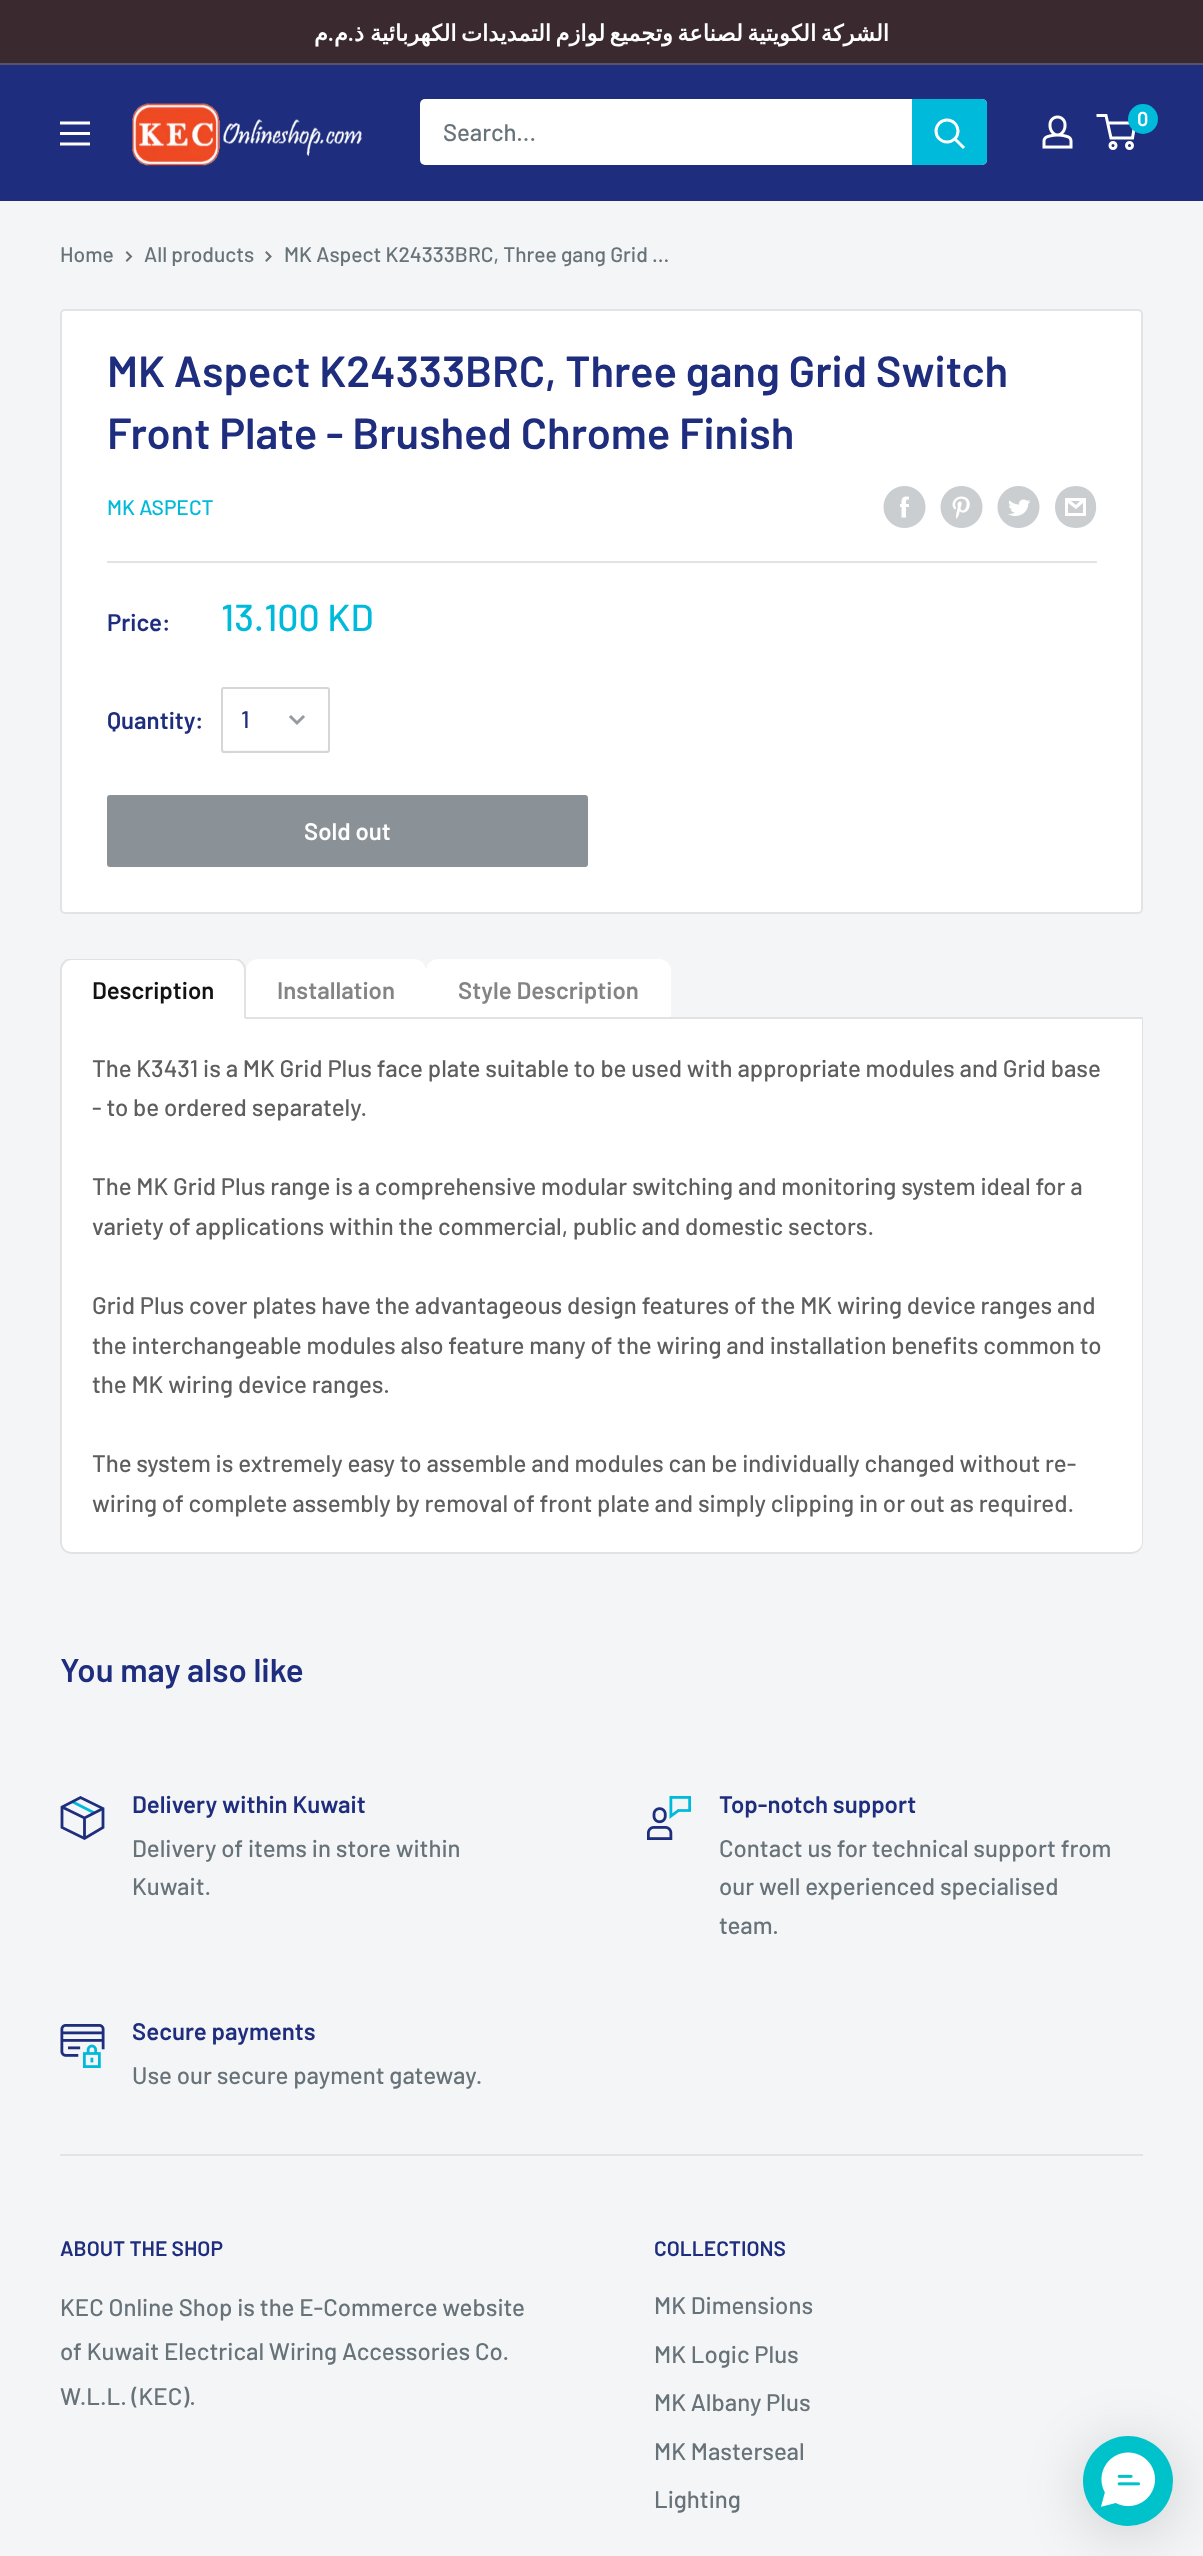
(async () => {
    const canvas = document.querySelector("canvas");
    canvas.width = 1203;
    canvas.height = 2556;
    const context = canvas.getContext("2d");
    context.miterLimit = 4;
    context.fontKerning = "normal";
    function write(s, x, y, font, color) {
        context.font = font;
        context.fillStyle = color;
        context.fillText(s, x, y);
    }
    function block(x, y, w, h, color) {
        context.fillStyle = color;
        context.fillRect(x, y, w, h);
    }
    function card(x, y, w, h, r, color) {
        context.fillStyle = color;
        context.beginPath();
        context.roundRect(x, y, w, h, r);
        context.fill();
    }
    async function photo(src, x, y, w, h) {
        const img = new Image();
        img.src = src;
        await img.decode();
        context.drawImage(img, x, y, w, h);
    }

    block(0, 0, 1203, 2556, "rgb(243, 245, 246)");
    block(0, 0, 1203, 63, "rgb(58, 42, 47)");
    block(0, 63, 1203, 2, "rgb(90, 82, 105)");
    context.direction = "rtl";
    write("م", 328, 41, "bold 22.5px DejaVu Sans", "rgb(255, 255, 255)");
    write(".", 334, 41, "600 22.5px Barlow", "rgb(255, 255, 255)");
    write("م", 348, 41, "bold 22.5px DejaVu Sans", "rgb(255, 255, 255)");
    write(".", 354, 41, "600 22.5px Barlow", "rgb(255, 255, 255)");
    write("ذ", 364, 41, "bold 22.5px DejaVu Sans", "rgb(255, 255, 255)");
    context.wordSpacing = "-2.75px";
    write("الشركة الكويتية لصناعة وتجميع لوازم التمديدات الكهربائية", 889, 41, "bold 22.5px DejaVu Sans", "rgb(255, 255, 255)");
    block(0, 65, 1203, 136, "rgb(30, 45, 125)");
    await photo("media/1.png", 132, 103, 231, 63);
    await photo("media/2.png", 1042, 115, 31, 34);
    context.beginPath();
    context.arc(1113, 145.5, 3, 0, Math.PI * 2);
    context.strokeStyle = "rgb(255, 255, 255)";
    context.lineWidth = 3;
    context.stroke();
    context.beginPath();
    context.arc(1129.5, 145.5, 3, 0, Math.PI * 2);
    context.stroke();
    context.beginPath();
    context.moveTo(1107.5, 123);
    context.lineTo(1135, 123);
    context.lineTo(1132.5, 138);
    context.lineTo(1111, 138);
    context.lineTo(1106, 115.5);
    context.lineTo(1096.5, 115.5);
    context.stroke();
    context.fillStyle = "rgb(0, 186, 219)";
    context.beginPath();
    context.arc(1143, 119, 15, 0, Math.PI * 2);
    context.fill();
    context.wordSpacing = "0px";
    context.direction = "ltr";
    write("0", 1137, 126, "600 20px Barlow", "rgb(255, 255, 255)");
    await photo("media/3.png", 60, 121, 30, 25);
    card(420, 99, 567, 66, 5, "rgb(255, 255, 255)");
    write("Search...", 443, 141, "500 24px Barlow", "rgb(103, 114, 121)");
    context.fillStyle = "rgb(0, 186, 219)";
    context.beginPath();
    context.roundRect(912, 99, 75, 66, [0, 5, 5, 0]);
    context.fill();
    context.beginPath();
    context.moveTo(963, 147);
    context.lineTo(955.5, 139.5);
    context.lineCap = "square";
    context.stroke();
    context.beginPath();
    context.arc(947, 131, 11, 0, Math.PI * 2);
    context.stroke();
    write("Home", 60, 262, "500 21px Barlow", "rgb(103, 114, 121)");
    context.beginPath();
    context.moveTo(127, 252.5);
    context.lineTo(131, 256.5);
    context.lineTo(127, 260.5);
    context.strokeStyle = "rgb(103, 114, 121)";
    context.lineWidth = 2;
    context.stroke();
    write("All products", 144, 262, "500 21px Barlow", "rgb(103, 114, 121)");
    context.beginPath();
    context.moveTo(266.5, 252.5);
    context.lineTo(270.5, 256.5);
    context.lineTo(266.5, 260.5);
    context.stroke();
    write("MK Aspect K24333BRC, Three gang Grid ...", 284, 262, "500 21px Barlow", "rgb(103, 114, 121)");
    context.fillStyle = "rgb(255, 255, 255)";
    context.beginPath();
    context.roundRect(61, 310, 1081, 603, 4);
    context.fill();
    context.strokeStyle = "rgb(225, 227, 228)";
    context.stroke();
    write("MK Aspect K24333BRC, Three gang Grid Switch", 107, 387, "600 43.5px Barlow", "rgb(30, 45, 125)");
    write("Front Plate - Brushed Chrome Finish", 107, 449, "600 43.5px Barlow", "rgb(30, 45, 125)");
    write("MK ASPECT", 107, 515, "500 21px Barlow", "rgb(0, 186, 219)");
    await photo("media/4.png", 883, 486, 43, 42);
    await photo("media/5.png", 940, 486, 43, 42);
    await photo("media/6.png", 997, 486, 43, 42);
    context.fillStyle = "rgb(202, 206, 208)";
    context.beginPath();
    context.moveTo(1076, 528);
    context.bezierCurveTo(1048, 528, 1048, 486, 1076, 486);
    context.bezierCurveTo(1103, 486, 1103, 528, 1076, 528);
    context.closePath();
    context.moveTo(1071, 501);
    context.lineTo(1080, 501);
    context.lineTo(1076, 505);
    context.closePath();
    context.moveTo(1083, 503);
    context.lineTo(1083, 513);
    context.lineTo(1068, 513);
    context.lineTo(1068, 503);
    context.lineTo(1076, 509);
    context.closePath();
    context.moveTo(1086, 498);
    context.lineTo(1065, 498);
    context.lineTo(1065, 516);
    context.lineTo(1086, 516);
    context.closePath();
    context.fill();
    block(107, 561, 990, 2, "rgb(225, 227, 228)");
    write("Price:", 107, 631, "600 24px Barlow", "rgb(30, 45, 125)");
    write("13.100 KD", 221, 631, "500 37.5px Barlow", "rgb(0, 186, 219)");
    write("Quantity:", 107, 729, "600 24px Barlow", "rgb(30, 45, 125)");
    context.fillStyle = "rgb(246, 247, 247)";
    context.beginPath();
    context.moveTo(222, 749);
    context.bezierCurveTo(222, 757, 235, 752, 241, 752);
    context.lineTo(310, 752);
    context.bezierCurveTo(335, 752, 329, 757, 329, 730);
    context.lineTo(329, 690);
    context.lineTo(328, 705);
    context.lineTo(328, 749);
    context.lineTo(327, 750);
    context.lineTo(241, 750);
    context.bezierCurveTo(237, 750, 227, 751, 223, 750);
    context.closePath();
    context.fill();
    context.beginPath();
    context.roundRect(222, 688, 107, 64, 2);
    context.strokeStyle = "rgb(212, 214, 216)";
    context.stroke();
    write("1", 241, 728, "500 24px Barlow", "rgb(30, 45, 125)");
    context.beginPath();
    context.moveTo(303, 717);
    context.lineTo(297, 723);
    context.lineTo(291, 717);
    context.strokeStyle = "rgb(149, 156, 161)";
    context.lineWidth = 3;
    context.stroke();
    context.fillStyle = "rgb(138, 146, 151)";
    context.beginPath();
    context.roundRect(108, 796, 479, 70, 2);
    context.fill();
    context.strokeStyle = "rgb(138, 146, 151)";
    context.lineWidth = 2;
    context.stroke();
    write("Sold out", 304, 840, "600 24px Barlow", "rgb(255, 255, 255)");
    context.beginPath();
    context.roundRect(60, 1019, 1083, 535, [0, 0, 12, 12]);
    context.fill();
    context.fillStyle = "rgb(226, 226, 226)";
    context.beginPath();
    context.moveTo(60, 1018);
    context.lineTo(1143, 1018);
    context.lineTo(1143, 1542);
    context.bezierCurveTo(1143, 1549, 1138, 1554, 1131, 1554);
    context.lineTo(72, 1554);
    context.bezierCurveTo(65, 1554, 60, 1549, 60, 1542);
    context.closePath();
    context.moveTo(62, 1018);
    context.lineTo(1142, 1018);
    context.lineTo(1142, 1542);
    context.bezierCurveTo(1142, 1548, 1137, 1552, 1131, 1552);
    context.lineTo(72, 1552);
    context.bezierCurveTo(66, 1552, 62, 1548, 62, 1542);
    context.closePath();
    context.fill("evenodd");
    context.fillStyle = "rgb(255, 255, 255)";
    context.beginPath();
    context.roundRect(60, 959, 186, 60, [12, 12, 0, 0]);
    context.fill();
    context.save();
    context.beginPath();
    context.rect(60, 959, 1083, 60);
    context.clip();
    context.fillStyle = "rgb(226, 226, 226)";
    context.beginPath();
    context.moveTo(72, 958);
    context.lineTo(234, 958);
    context.bezierCurveTo(241, 958, 246, 964, 246, 970);
    context.lineTo(246, 1018);
    context.lineTo(60, 1018);
    context.lineTo(60, 970);
    context.bezierCurveTo(60, 964, 65, 958, 72, 958);
    context.closePath();
    context.moveTo(72, 960);
    context.lineTo(234, 960);
    context.bezierCurveTo(240, 960, 244, 965, 244, 970);
    context.lineTo(244, 1018);
    context.lineTo(62, 1018);
    context.lineTo(62, 970);
    context.bezierCurveTo(62, 965, 66, 960, 72, 960);
    context.closePath();
    context.fill("evenodd");
    context.restore();
    write("Description", 92, 999, "600 24px Barlow", "rgb(18, 18, 18)");
    block(60, 1018, 2, 1, "rgb(226, 226, 226)");
    context.fillStyle = "rgb(255, 255, 255)";
    context.beginPath();
    context.roundRect(246, 959, 180, 60, [12, 12, 0, 0]);
    context.fill();
    context.beginPath();
    context.roundRect(426, 959, 245, 60, [12, 12, 0, 0]);
    context.fill();
    block(245, 1017, 898, 2, "rgb(226, 226, 226)");
    write("Installation", 277, 999, "600 24px Barlow", "rgb(132, 132, 132)");
    write("Style Description", 458, 999, "600 24px Barlow", "rgb(132, 132, 132)");
    write("The K3431 is a MK Grid Plus face plate suitable to be used with appropriate modules and Grid base", 92, 1077, "500 24px Barlow", "rgb(94, 94, 94)");
    write("- to be ordered separately.", 92, 1116, "500 24px Barlow", "rgb(94, 94, 94)");
    write("The MK Grid Plus range is a comprehensive modular switching and monitoring system ideal for a", 92, 1195, "500 24px Barlow", "rgb(94, 94, 94)");
    write("variety of applications within the commercial, public and domestic sectors.", 92, 1235, "500 24px Barlow", "rgb(94, 94, 94)");
    write("Grid Plus cover plates have the advantageous design features of the MK wiring device ranges and", 92, 1314, "500 24px Barlow", "rgb(94, 94, 94)");
    write("the interchangeable modules also feature many of the wiring and installation benefits common to", 92, 1354, "500 24px Barlow", "rgb(94, 94, 94)");
    write("the MK wiring device ranges.", 92, 1393, "500 24px Barlow", "rgb(94, 94, 94)");
    write("The system is extremely easy to assemble and modules can be individually changed without re-", 92, 1472, "500 24px Barlow", "rgb(94, 94, 94)");
    write("wiring of complete assembly by removal of front plate and simply clipping in or out as required.", 92, 1512, "500 24px Barlow", "rgb(94, 94, 94)");
    write("You may also like", 60, 1682, "600 33px Barlow", "rgb(30, 45, 125)");
    context.beginPath();
    context.moveTo(72, 1801.5);
    context.lineTo(94.5, 1813);
    context.strokeStyle = "rgb(0, 186, 219)";
    context.lineWidth = 2.8;
    context.lineCap = "butt";
    context.stroke();
    context.beginPath();
    context.moveTo(103, 1808.5);
    context.lineTo(84.5, 1818);
    context.lineTo(62, 1807);
    context.moveTo(84.5, 1818);
    context.lineTo(84.5, 1838.5);
    context.strokeStyle = "rgb(30, 45, 125)";
    context.stroke();
    context.beginPath();
    context.moveTo(103, 1808.5);
    context.lineTo(103, 1827.5);
    context.lineTo(84.5, 1838.5);
    context.lineTo(62, 1827.5);
    context.lineTo(62, 1807);
    context.lineTo(80.5, 1797.5);
    context.closePath();
    context.lineCap = "square";
    context.stroke();
    write("Delivery within Kuwait", 132, 1813, "600 24px Barlow", "rgb(30, 45, 125)");
    write("Delivery of items in store within", 132, 1857, "500 24px Barlow", "rgb(103, 114, 121)");
    write("Kuwait.", 132, 1895, "500 24px Barlow", "rgb(103, 114, 121)");
    await photo("media/7.png", 647, 1796, 45, 44);
    write("Top-notch support", 719, 1813, "600 24px Barlow", "rgb(30, 45, 125)");
    write("Contact us for technical support from", 719, 1857, "500 24px Barlow", "rgb(103, 114, 121)");
    write("our well experienced specialised", 719, 1895, "500 24px Barlow", "rgb(103, 114, 121)");
    write("team.", 719, 1934, "500 24px Barlow", "rgb(103, 114, 121)");
    await photo("media/8.png", 60, 2024, 45, 44);
    write("Secure payments", 132, 2040, "600 24px Barlow", "rgb(30, 45, 125)");
    write("Use our secure payment gateway.", 132, 2084, "500 24px Barlow", "rgb(103, 114, 121)");
    block(60, 2154, 1083, 2, "rgb(225, 227, 228)");
    write("ABOUT THE SHOP", 60, 2256, "600 21px Barlow", "rgb(30, 45, 125)");
    write("KEC Online Shop is the E-Commerce website", 60, 2316, "500 24px Barlow", "rgb(103, 114, 121)");
    write("of Kuwait Electrical Wiring Accessories Co.", 60, 2360, "500 24px Barlow", "rgb(103, 114, 121)");
    write("W.L.L. (KEC).", 60, 2405, "500 24px Barlow", "rgb(103, 114, 121)");
    write("COLLECTIONS", 654, 2256, "600 21px Barlow", "rgb(30, 45, 125)");
    write("MK Dimensions", 654, 2314, "500 24px Barlow", "rgb(103, 114, 121)");
    write("MK Logic Plus", 654, 2363, "500 24px Barlow", "rgb(103, 114, 121)");
    write("MK Albany Plus", 654, 2411, "500 24px Barlow", "rgb(103, 114, 121)");
    write("MK Masterseal", 654, 2460, "500 24px Barlow", "rgb(103, 114, 121)");
    write("Lighting", 654, 2508, "500 24px Barlow", "rgb(103, 114, 121)");
    context.fillStyle = "rgba(0, 0, 0, 0.16)";
    context.filter = "blur(30px)";
    context.beginPath();
    context.roundRect(1083, 2444, 90, 90, 45);
    context.fill();
    context.filter = "none";
    context.fillStyle = "rgb(0, 194, 203)";
    context.beginPath();
    context.arc(1128, 2481, 45, 0, Math.PI * 2);
    context.fill();
    await photo("media/9.png", 1101, 2452, 54, 55);
})();
